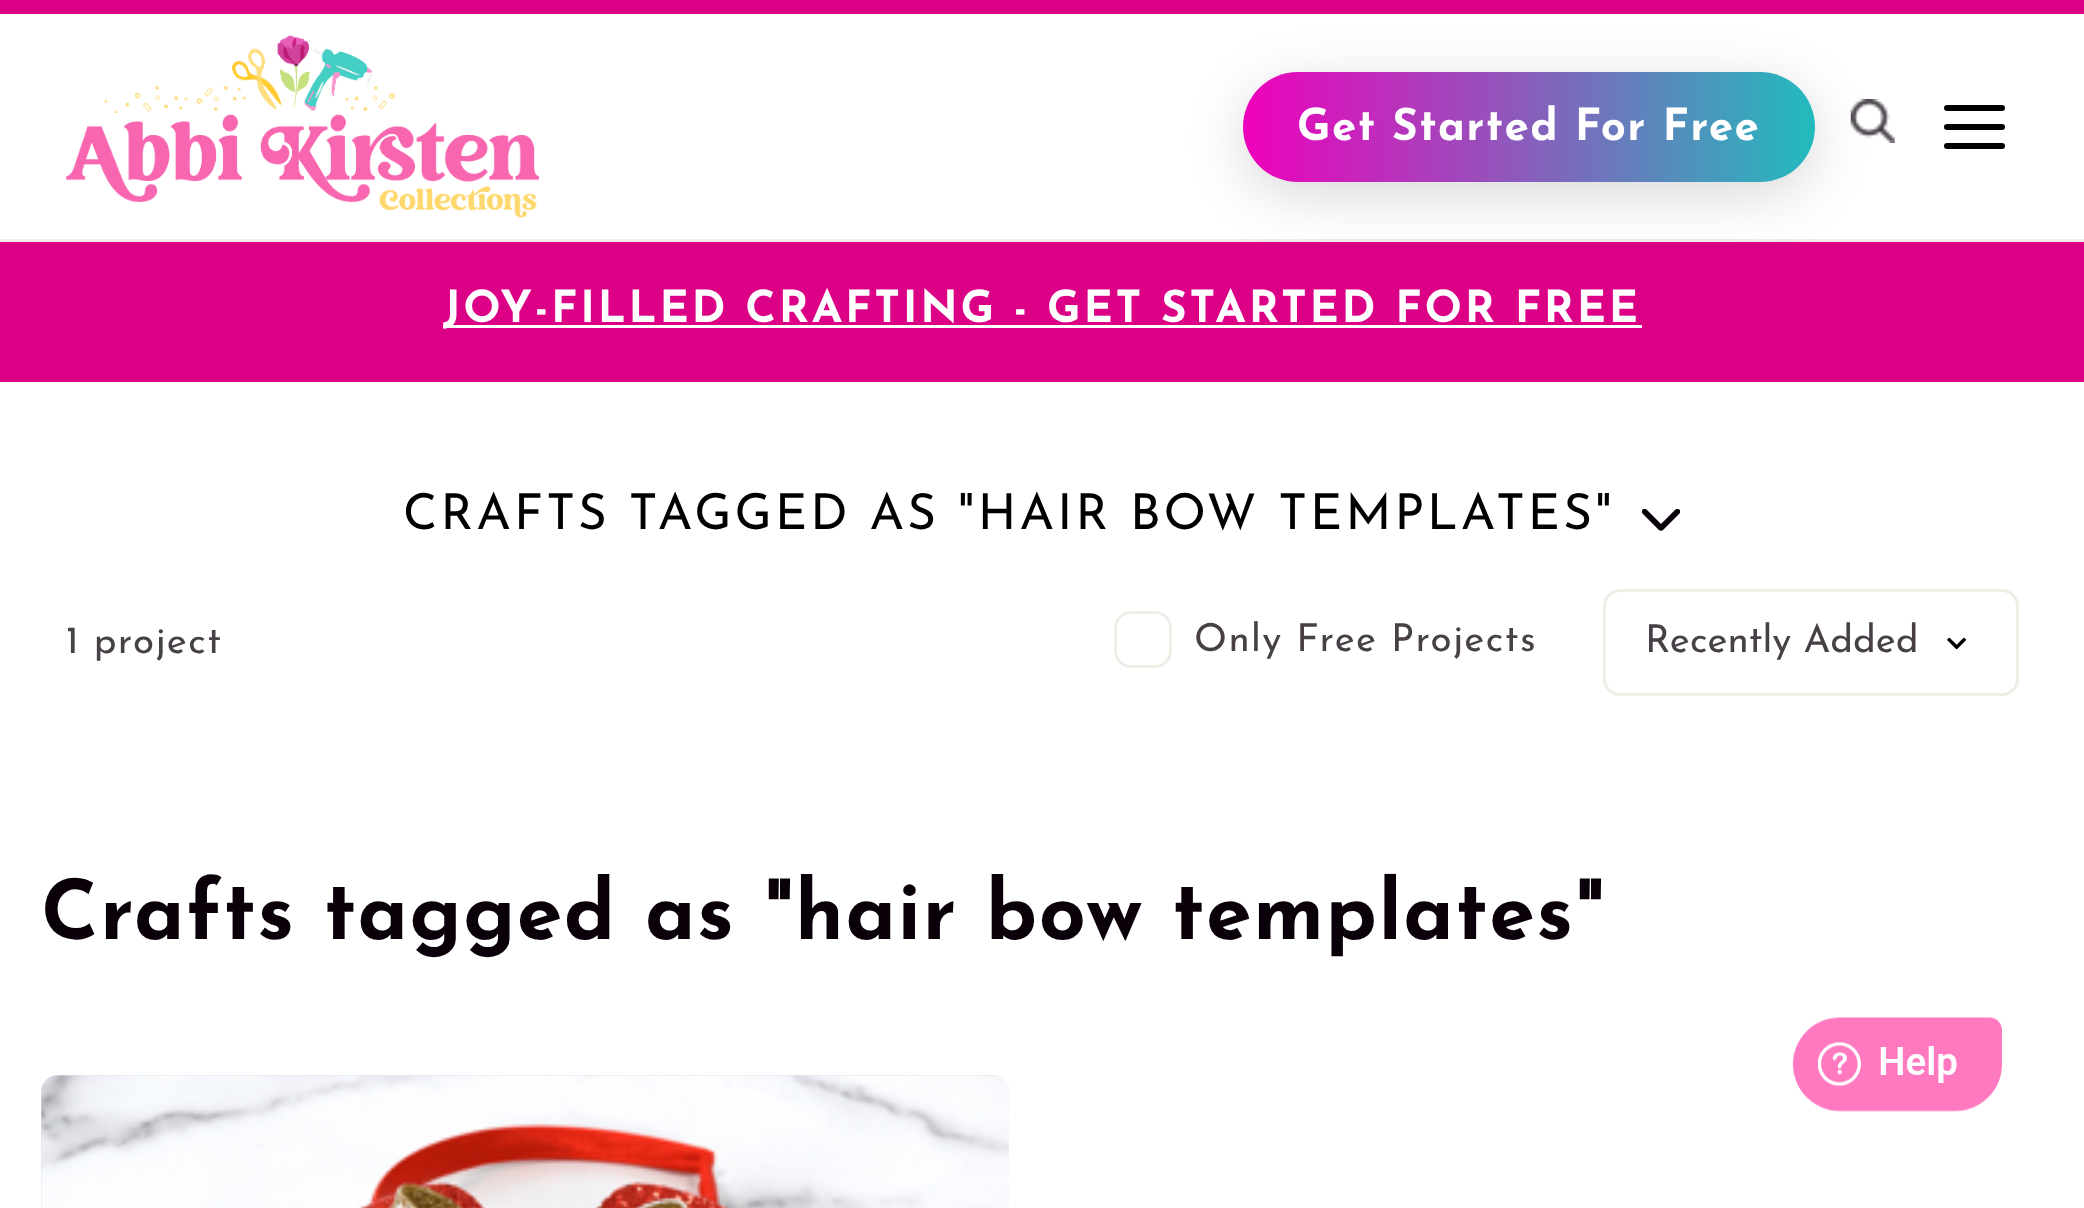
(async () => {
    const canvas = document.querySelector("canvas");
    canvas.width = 2084;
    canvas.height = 1208;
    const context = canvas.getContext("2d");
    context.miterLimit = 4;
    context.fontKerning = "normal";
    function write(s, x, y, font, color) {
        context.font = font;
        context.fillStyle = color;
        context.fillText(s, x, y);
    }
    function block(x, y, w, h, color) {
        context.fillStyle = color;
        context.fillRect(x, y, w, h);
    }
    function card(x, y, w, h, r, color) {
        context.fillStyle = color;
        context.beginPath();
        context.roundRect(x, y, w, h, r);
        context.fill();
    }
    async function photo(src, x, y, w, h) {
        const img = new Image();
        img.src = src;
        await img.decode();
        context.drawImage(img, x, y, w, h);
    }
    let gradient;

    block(0, 0, 2084, 1208, "rgb(255, 255, 255)");
    block(0, 0, 2084, 14, "rgb(219, 0, 134)");
    block(0, 239, 2084, 3, "rgb(240, 237, 230)");
    await photo("media/1.png", 66, 35, 473, 183);
    block(0, 242, 2084, 140, "rgb(219, 0, 134)");
    context.fillStyle = "rgba(9, 0, 10, 0.15)";
    context.filter = "blur(27.5px)";
    context.beginPath();
    context.roundRect(1243, 85, 572, 110, 55);
    context.fill();
    context.filter = "none";
    gradient = context.createLinearGradient(1243, 127, 1815, 126);
    gradient.addColorStop(0, "rgb(239, 0, 187)");
    gradient.addColorStop(1, "rgb(34, 187, 189)");
    context.fillStyle = gradient;
    context.beginPath();
    context.roundRect(1243, 72, 572, 110, 55);
    context.fill();
    context.letterSpacing = "1.4px";
    write("Get Started For Free", 1297, 140, "bold 44px Josefin Sans", "rgb(255, 255, 255)");
    await photo("media/2.png", 1850, 99, 45, 44);
    card(1944, 105, 61, 6, 3, "rgb(0, 0, 0)");
    card(1944, 124, 61, 6, 3, "rgb(0, 0, 0)");
    card(1944, 143, 61, 6, 3, "rgb(0, 0, 0)");
    block(443, 325, 1199, 3, "rgb(255, 255, 255)");
    context.letterSpacing = "2.75px";
    write("JOY-FILLED CRAFTING - GET STARTED FOR FREE", 443, 322, "bold 44px Josefin Sans", "rgb(255, 255, 255)");
    context.letterSpacing = "3.1px";
    write("CRAFTS TAGGED AS \"HAIR BOW TEMPLATES\"", 403, 529, "49.5px Josefin Sans", "rgb(0, 0, 0)");
    await photo("media/3.png", 1642, 509, 38, 22);
    context.letterSpacing = "1.4px";
    write("1 project", 66, 653, "38.5px Josefin Sans", "rgb(71, 64, 71)");
    context.beginPath();
    context.roundRect(1115.5, 612.5, 55, 54, 15.5);
    context.strokeStyle = "rgb(240, 237, 230)";
    context.lineWidth = 3;
    context.stroke();
    write("Only Free Projects", 1194, 651, "38.5px Josefin Sans", "rgb(71, 64, 71)");
    await photo("media/4.png", 1947, 637, 19, 13);
    context.beginPath();
    context.roundRect(1604.5, 590.5, 413, 104, 15.5);
    context.stroke();
    context.letterSpacing = "0px";
    write("Recently Added", 1645, 652, "38.5px Josefin Sans", "rgb(71, 64, 71)");
    context.letterSpacing = "1.4px";
    write("Crafts tagged as \"hair bow templates\"", 41, 939, "bold 82.5px Josefin Sans", "rgb(9, 0, 10)");
    card(41, 1075, 968, 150, 17, "rgb(225, 225, 225)");
    await photo("media/5.png", 41, 1075, 968, 133);
    await photo("media/6.png", 1793, 1017, 209, 95);
})();
